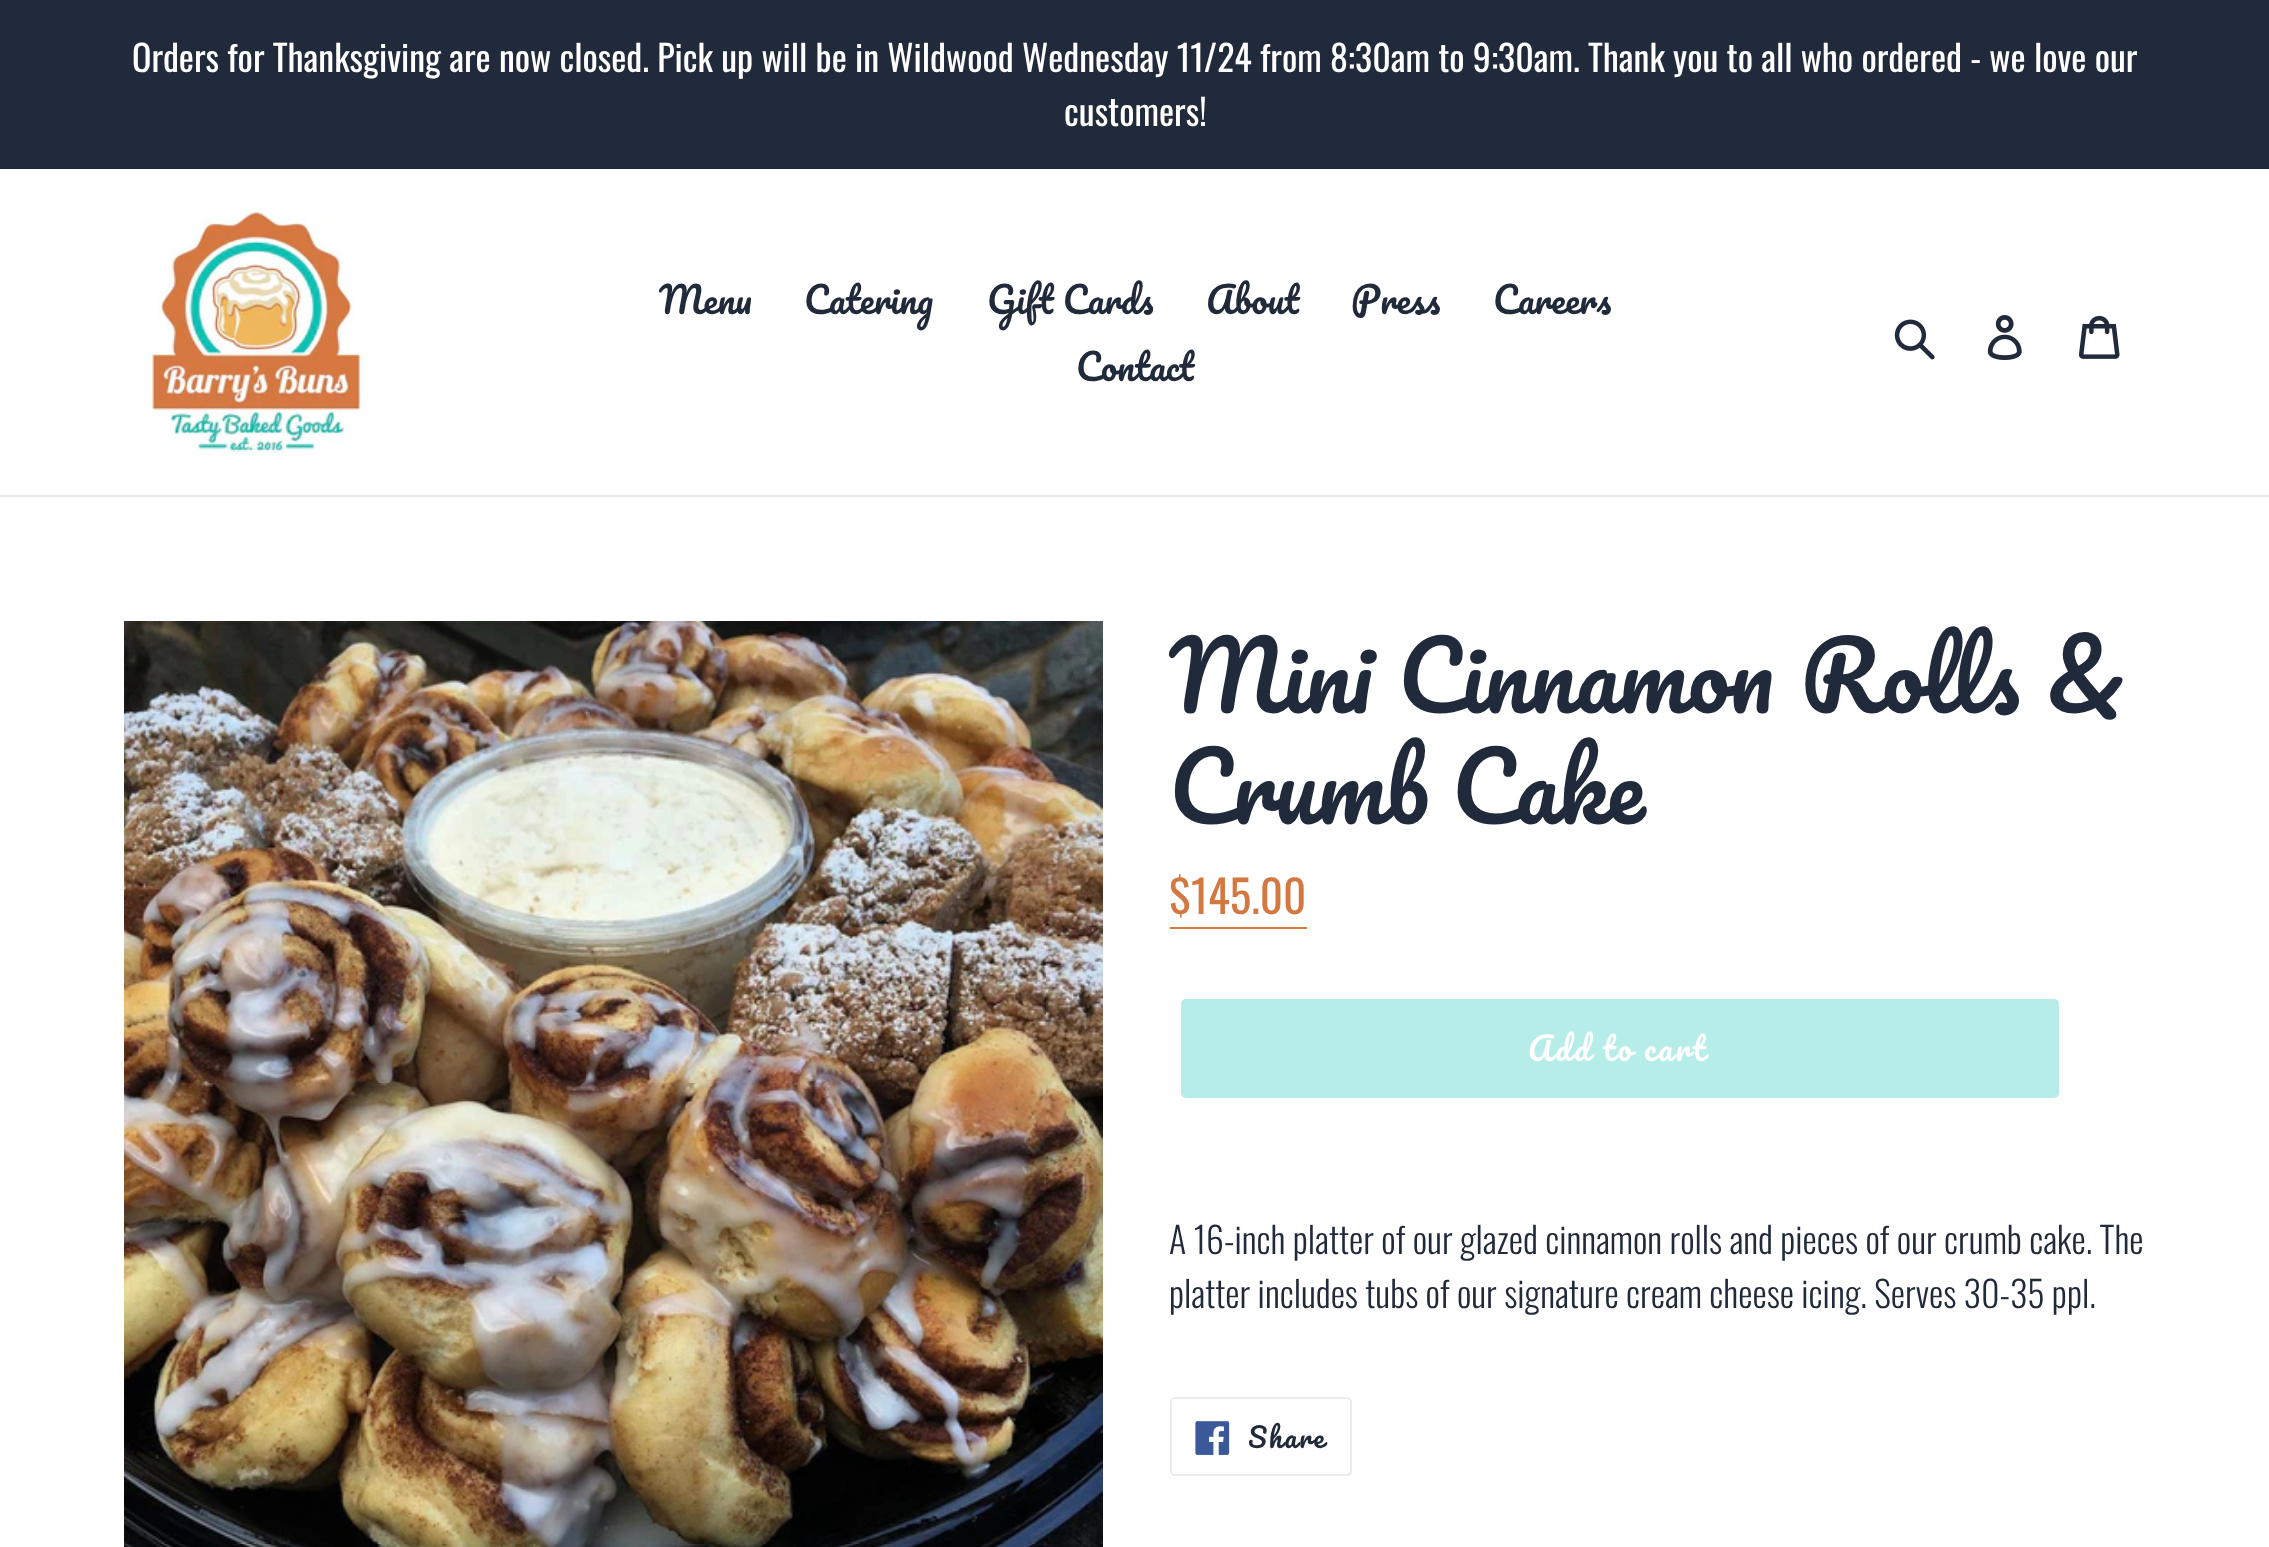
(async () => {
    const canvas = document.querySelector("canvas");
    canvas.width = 2269;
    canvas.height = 1547;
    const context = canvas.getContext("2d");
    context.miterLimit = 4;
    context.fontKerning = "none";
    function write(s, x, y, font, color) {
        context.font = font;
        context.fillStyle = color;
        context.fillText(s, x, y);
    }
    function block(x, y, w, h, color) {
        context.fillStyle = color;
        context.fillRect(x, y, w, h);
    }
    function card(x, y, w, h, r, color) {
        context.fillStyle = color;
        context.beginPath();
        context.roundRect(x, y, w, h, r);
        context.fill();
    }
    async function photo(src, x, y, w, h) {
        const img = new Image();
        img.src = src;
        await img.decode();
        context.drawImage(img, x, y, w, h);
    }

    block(0, 0, 2269, 1547, "rgb(255, 255, 255)");
    block(0, 0, 2269, 169, "rgb(33, 42, 59)");
    write("Orders for Thanksgiving are now closed. Pick up will be in Wildwood Wednesday 11/24 from 8:30am to 9:30am. Thank you to all who ordered - we love our", 132, 72, "36px Oswald", "rgb(255, 255, 255)");
    write("customers!", 1064, 126, "36px Oswald", "rgb(255, 255, 255)");
    block(0, 495, 2269, 2, "rgb(235, 235, 235)");
    await photo("media/1.png", 151, 209, 215, 247);
    write("Menu", 659, 314, "36px Pacifico", "rgb(33, 42, 59)");
    write("Catering", 804, 314, "36px Pacifico", "rgb(33, 42, 59)");
    write("Gift Cards", 987, 314, "36px Pacifico", "rgb(33, 42, 59)");
    write("About", 1206, 314, "36px Pacifico", "rgb(33, 42, 59)");
    write("Press", 1351, 314, "36px Pacifico", "rgb(33, 42, 59)");
    write("Careers", 1493, 314, "36px Pacifico", "rgb(33, 42, 59)");
    write("Contact", 1076, 381, "36px Pacifico", "rgb(33, 42, 59)");
    await photo("media/2.png", 1894, 319, 41, 41);
    await photo("media/3.png", 1987, 315, 35, 45);
    await photo("media/4.png", 2079, 315, 41, 44);
    await photo("media/5.png", 124, 621, 979, 926);
    context.wordSpacing = "2px";
    write("Mini Cinnamon Rolls &", 1169, 713, "92.25px Pacifico", "rgb(33, 42, 59)");
    context.wordSpacing = "-2px";
    write("Crumb Cake", 1169, 824, "92.25px Pacifico", "rgb(33, 42, 59)");
    context.wordSpacing = "0px";
    write("$145.00", 1169, 914, "45px Oswald", "rgb(212, 120, 66)");
    block(1170, 927, 137, 2, "rgb(212, 120, 66)");
    card(1181, 999, 878, 99, 5, "rgb(183, 237, 233)");
    context.letterSpacing = "2.5px";
    context.wordSpacing = "-1px";
    write("Add to cart", 1528, 1061, "31.5px Pacifico", "rgb(255, 255, 255)");
    context.letterSpacing = "0px";
    context.wordSpacing = "0px";
    write("A 16-inch platter of our glazed cinnamon rolls and pieces of our crumb cake. The", 1169, 1254, "300 36px Oswald", "rgb(33, 42, 59)");
    write("platter includes tubs of our signature cream cheese icing. Serves 30-35 ppl.", 1169, 1308, "300 36px Oswald", "rgb(33, 42, 59)");
    context.beginPath();
    context.roundRect(1171, 1398, 180, 77, 4);
    context.strokeStyle = "rgb(235, 235, 235)";
    context.lineWidth = 2;
    context.stroke();
    await photo("media/6.png", 1195, 1421, 35, 34);
    context.letterSpacing = "2px";
    write("Share", 1248, 1448, "27px Pacifico", "rgb(33, 42, 59)");
})();
